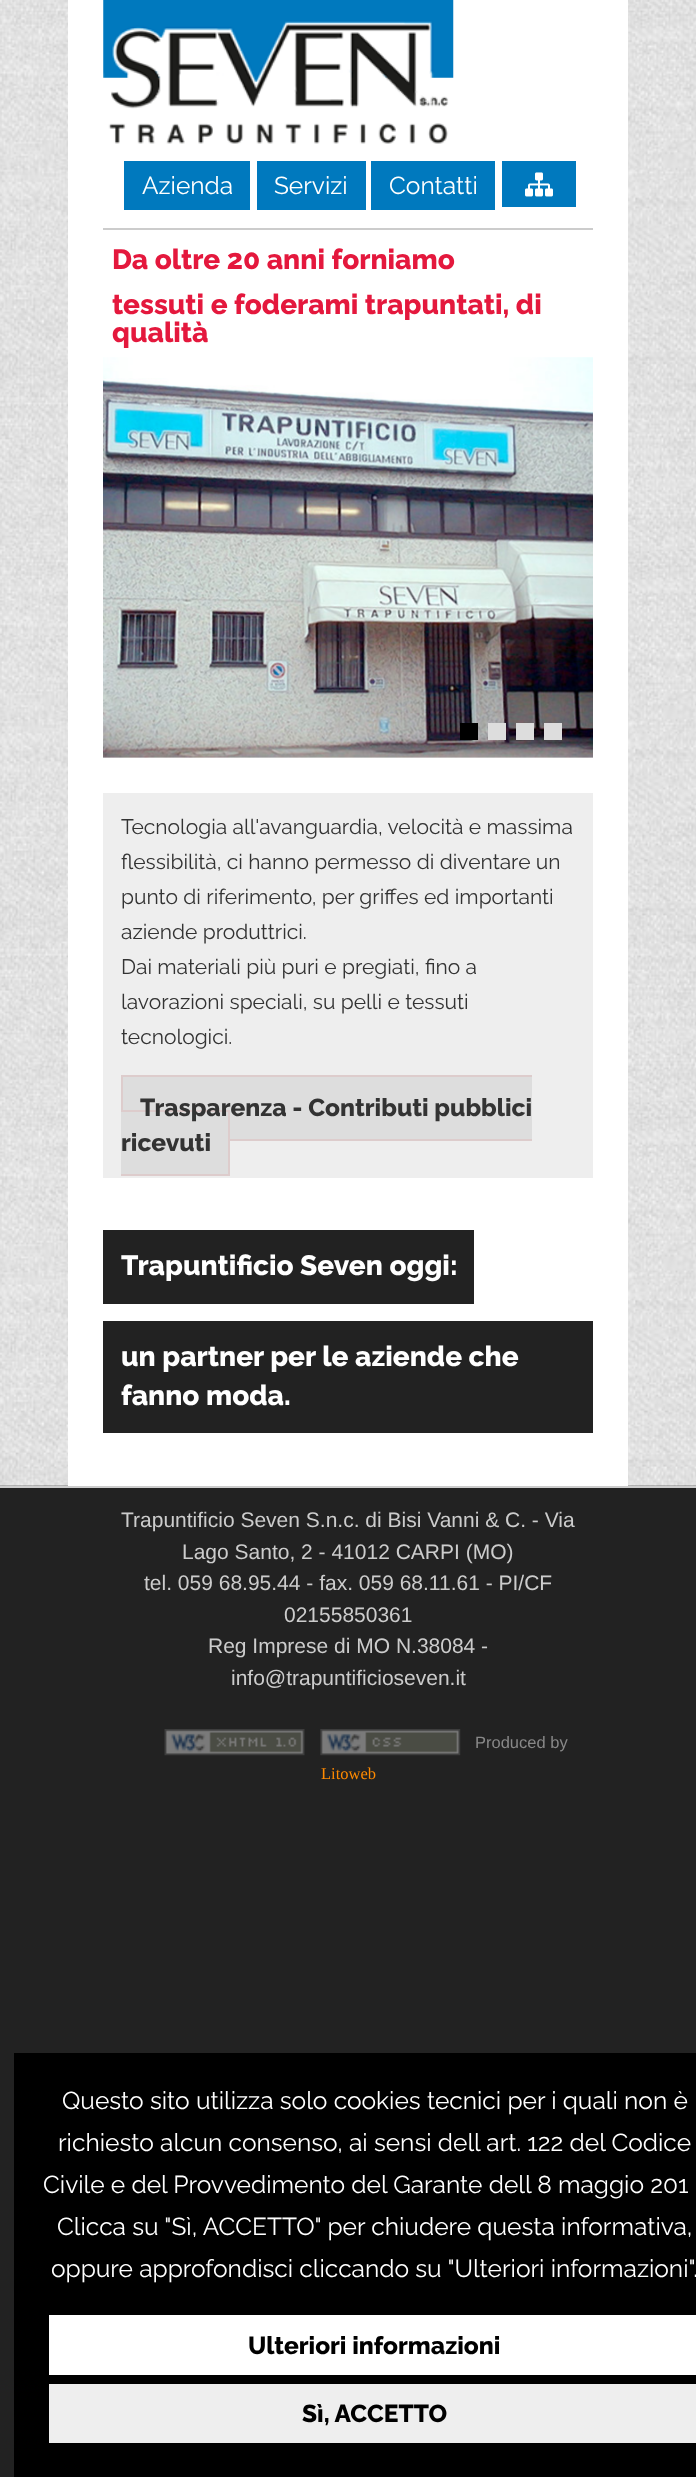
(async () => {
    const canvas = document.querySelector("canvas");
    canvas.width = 696;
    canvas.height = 2477;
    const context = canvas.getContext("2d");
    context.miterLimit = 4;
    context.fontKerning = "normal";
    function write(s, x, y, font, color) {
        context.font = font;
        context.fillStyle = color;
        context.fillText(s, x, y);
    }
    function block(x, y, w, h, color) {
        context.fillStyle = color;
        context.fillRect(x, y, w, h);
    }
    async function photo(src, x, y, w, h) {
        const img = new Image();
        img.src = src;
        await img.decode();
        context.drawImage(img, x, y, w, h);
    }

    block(0, 0, 696, 2477, "rgb(34, 34, 34)");
    await photo("media/1.png", 0, 0, 696, 1486);
    block(68, 0, 560, 1486, "rgb(255, 255, 255)");
    block(103, 228, 490, 2, "rgb(204, 204, 204)");
    await photo("media/2.png", 103, 0, 351, 144);
    block(124, 161, 126, 49, "rgb(0, 121, 190)");
    write("Azienda", 142, 194, "100 24.5px 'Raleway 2'", "rgb(255, 255, 255)");
    block(257, 161, 109, 49, "rgb(0, 121, 190)");
    write("Servizi", 274, 194, "100 24.5px 'Raleway 2'", "rgb(255, 255, 255)");
    block(371, 161, 124, 49, "rgb(0, 121, 190)");
    write("Contatti", 389, 194, "100 24.5px 'Raleway 2'", "rgb(255, 255, 255)");
    block(502, 161, 74, 46, "rgb(0, 121, 190)");
    await photo("media/3.png", 525, 172, 28, 25);
    write("Da oltre 20 anni forniamo", 112, 269, "100 28px Raleway", "rgb(228, 24, 61)");
    write("tessuti e foderami trapuntati, di", 112, 314, "100 28px Raleway", "rgb(228, 24, 61)");
    write("qualità", 112, 342, "100 28px Raleway", "rgb(228, 24, 61)");
    await photo("media/4.png", 103, 357, 490, 401);
    block(460, 723, 18, 17, "rgb(0, 0, 0)");
    block(488, 723, 18, 17, "rgb(221, 221, 221)");
    block(516, 723, 18, 17, "rgb(221, 221, 221)");
    block(544, 723, 18, 17, "rgb(221, 221, 221)");
    block(103, 793, 490, 385, "rgb(238, 238, 238)");
    write("Tecnologia all'avanguardia, velocità e massima", 121, 834, "100 21px 'Raleway 2'", "rgb(51, 51, 51)");
    write("flessibilità, ci hanno permesso di diventare un", 121, 869, "100 21px 'Raleway 2'", "rgb(51, 51, 51)");
    write("punto di riferimento, per griffes ed importanti", 121, 904, "100 21px 'Raleway 2'", "rgb(51, 51, 51)");
    write("aziende produttrici.", 121, 939, "100 21px 'Raleway 2'", "rgb(51, 51, 51)");
    write("Dai materiali più puri e pregiati, fino a", 121, 974, "100 21px 'Raleway 2'", "rgb(51, 51, 51)");
    write("lavorazioni speciali, su pelli e tessuti", 121, 1009, "100 21px 'Raleway 2'", "rgb(51, 51, 51)");
    write("tecnologici.", 121, 1044, "100 21px 'Raleway 2'", "rgb(51, 51, 51)");
    block(123, 1077, 409, 62, "rgb(221, 221, 221)");
    block(121, 1110, 108, 2, "rgb(221, 204, 204)");
    block(121, 1112, 107, 62, "rgb(221, 221, 221)");
    block(228, 1110, 2, 66, "rgb(221, 204, 204)");
    write("Trasparenza - Contributi pubblici", 140, 1116, "100 24.5px Raleway", "rgb(51, 51, 51)");
    block(121, 1075, 411, 2, "rgb(221, 204, 204)");
    block(121, 1075, 2, 35, "rgb(221, 204, 204)");
    write("ricevuti", 121, 1151, "100 24.5px Raleway", "rgb(51, 51, 51)");
    block(230, 1139, 302, 2, "rgb(221, 204, 204)");
    block(121, 1174, 108, 2, "rgb(221, 204, 204)");
    block(103, 1230, 371, 74, "rgb(34, 34, 34)");
    write("Trapuntificio Seven oggi:", 121, 1275, "100 28px Raleway", "rgb(255, 255, 255)");
    block(103, 1321, 490, 112, "rgb(34, 34, 34)");
    write("un partner per le aziende che", 121, 1366, "100 28px Raleway", "rgb(255, 255, 255)");
    write("fanno moda.", 121, 1405, "100 28px Raleway", "rgb(255, 255, 255)");
    block(0, 1486, 696, 2, "rgb(204, 204, 204)");
    write("Trapuntificio Seven S.n.c. di Bisi Vanni & C. - Via", 121, 1527, "21px Liberation Sans", "rgb(204, 204, 204)");
    write("Lago Santo, 2 - 41012 CARPI (MO)", 182, 1559, "21px Liberation Sans", "rgb(204, 204, 204)");
    write("tel. 059 68.95.44 - fax. 059 68.11.61 - PI/CF", 144, 1590, "21px Liberation Sans", "rgb(204, 204, 204)");
    write("02155850361", 284, 1622, "21px Liberation Sans", "rgb(204, 204, 204)");
    write("Reg Imprese di MO N.38084 -", 208, 1653, "21px Liberation Sans", "rgb(204, 204, 204)");
    write("info@trapuntificioseven.it", 231, 1685, "21px Liberation Sans", "rgb(204, 204, 204)");
    await photo("media/5.png", 164, 1729, 141, 27);
    await photo("media/6.png", 320, 1729, 141, 27);
    write("Produced by", 475, 1748, "16.5px Liberation Sans", "rgb(136, 136, 136)");
    write("Litoweb", 321, 1779, "16.5px Liberation Serif", "rgb(255, 138, 0)");
    block(14, 2053, 682, 424, "rgb(0, 0, 0)");
    write("Questo sito utilizza solo cookies tecnici per i quali non è", 62, 2109, "100 24.5px 'Raleway 2'", "rgb(255, 255, 255)");
    write("richiesto alcun consenso, ai sensi dell art. 122 del Codice", 58, 2151, "100 24.5px 'Raleway 2'", "rgb(255, 255, 255)");
    write("Civile e del Provvedimento del Garante dell 8 maggio 201", 43, 2193, "100 24.5px 'Raleway 2'", "rgb(255, 255, 255)");
    write("Clicca su \"Sì, ACCETTO\" per chiudere questa informativa,", 57, 2235, "100 24.5px 'Raleway 2'", "rgb(255, 255, 255)");
    write("oppure approfondisci cliccando su \"Ulteriori informazioni\".", 51, 2277, "100 24.5px 'Raleway 2'", "rgb(255, 255, 255)");
    block(49, 2315, 647, 60, "rgb(255, 255, 255)");
    write("Ulteriori informazioni", 248, 2354, "100 24.5px Raleway", "rgb(0, 0, 0)");
    block(49, 2384, 647, 59, "rgb(238, 238, 238)");
    write("Sì, ACCETTO", 302, 2422, "100 24.5px Raleway", "rgb(0, 0, 0)");
})();
